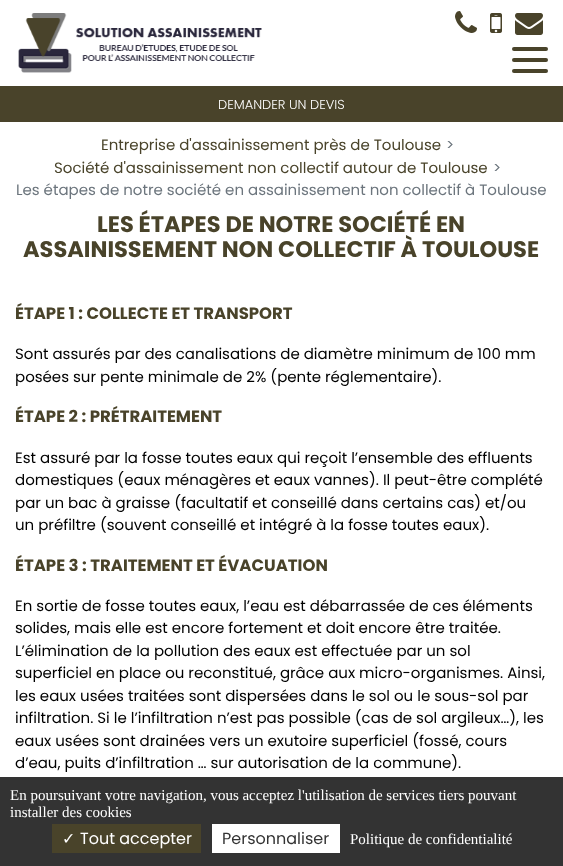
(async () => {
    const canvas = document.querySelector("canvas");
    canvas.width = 563;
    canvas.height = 866;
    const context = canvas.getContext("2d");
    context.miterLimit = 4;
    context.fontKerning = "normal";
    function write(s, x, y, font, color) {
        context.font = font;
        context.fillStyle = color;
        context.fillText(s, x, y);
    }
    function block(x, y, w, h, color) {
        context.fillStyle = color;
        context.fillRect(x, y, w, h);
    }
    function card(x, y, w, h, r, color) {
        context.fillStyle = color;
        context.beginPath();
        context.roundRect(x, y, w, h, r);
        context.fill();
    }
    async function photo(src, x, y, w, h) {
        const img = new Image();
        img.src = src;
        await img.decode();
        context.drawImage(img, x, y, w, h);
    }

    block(0, 0, 563, 866, "rgb(255, 255, 255)");
    await photo("media/1.png", 18, 13, 244, 60);
    card(512, 47, 36, 4, 2, "rgb(73, 67, 42)");
    card(512, 58, 36, 4, 2, "rgb(73, 67, 42)");
    card(512, 69, 36, 4, 2, "rgb(73, 67, 42)");
    await photo("media/2.png", 455, 11, 22, 22);
    await photo("media/3.png", 490, 13, 12, 20);
    await photo("media/4.png", 515, 13, 28, 22);
    block(0, 86, 563, 36, "rgb(73, 67, 42)");
    write("DEMANDER UN DEVIS", 218, 109, "300 13px Poppins", "rgb(255, 255, 255)");
    write("Entreprise d'assainissement près de Toulouse", 101, 150, "15px Poppins", "rgb(73, 67, 42)");
    write(">", 446, 150, "15px Poppins", "rgb(108, 117, 125)");
    write("Société d'assainissement non collectif autour de Toulouse", 54, 173, "15px Poppins", "rgb(73, 67, 42)");
    write(">", 493, 173, "15px Poppins", "rgb(108, 117, 125)");
    write("Les étapes de notre société en assainissement non collectif à Toulouse", 16, 195, "15px Poppins", "rgb(108, 117, 125)");
    write("LES ÉTAPES DE NOTRE SOCIÉTÉ EN", 97, 232, "bold 22.5px Poppins", "rgb(73, 67, 42)");
    write("ASSAINISSEMENT NON COLLECTIF À TOULOUSE", 23, 257, "bold 22.5px Poppins", "rgb(73, 67, 42)");
    write("ÉTAPE 1 : COLLECTE ET TRANSPORT", 15, 319, "bold 16.5px Poppins", "rgb(73, 67, 42)");
    write("Sont assurés par des canalisations de diamètre minimum de 100 mm", 15, 359, "15px Poppins", "rgb(0, 0, 0)");
    write("posées sur pente minimale de 2% (pente réglementaire).", 15, 382, "15px Poppins", "rgb(0, 0, 0)");
    write("ÉTAPE 2 : PRÉTRAITEMENT", 15, 422, "bold 16.5px Poppins", "rgb(73, 67, 42)");
    write("Est assuré par la fosse toutes eaux qui reçoit l’ensemble des effluents", 15, 463, "15px Poppins", "rgb(0, 0, 0)");
    write("domestiques (eaux ménagères et eaux vannes). Il peut-être complété", 15, 485, "15px Poppins", "rgb(0, 0, 0)");
    write("par un bac à graisse (facultatif et conseillé dans certains cas) et/ou", 15, 508, "15px Poppins", "rgb(0, 0, 0)");
    write("un préfiltre (souvent conseillé et intégré à la fosse toutes eaux).", 15, 530, "15px Poppins", "rgb(0, 0, 0)");
    write("ÉTAPE 3 : TRAITEMENT ET ÉVACUATION", 15, 571, "bold 16.5px Poppins", "rgb(73, 67, 42)");
    write("En sortie de fosse toutes eaux, l’eau est débarrassée de ces éléments", 15, 611, "15px Poppins", "rgb(0, 0, 0)");
    write("solides, mais elle est encore fortement et doit encore être traitée.", 15, 633, "15px Poppins", "rgb(0, 0, 0)");
    write("L’élimination de la pollution des eaux est effectuée par un sol", 15, 656, "15px Poppins", "rgb(0, 0, 0)");
    write("superficiel en place ou reconstitué, grâce aux micro-organismes. Ainsi,", 15, 678, "15px Poppins", "rgb(0, 0, 0)");
    write("les eaux usées traitées sont dispersées dans le sol ou le sous-sol par", 15, 701, "15px Poppins", "rgb(0, 0, 0)");
    write("infiltration. Si le l’infiltration n’est pas possible (cas de sol argileux…), les", 15, 723, "15px Poppins", "rgb(0, 0, 0)");
    write("eaux usées sont drainées vers un exutoire superficiel (fossé, cours", 15, 746, "15px Poppins", "rgb(0, 0, 0)");
    write("d’eau, puits d’infiltration … sur autorisation de la commune).", 15, 768, "15px Poppins", "rgb(0, 0, 0)");
    block(0, 777, 563, 89, "rgb(51, 51, 51)");
    write("En poursuivant votre navigation, vous acceptez l'utilisation de services tiers pouvant", 10, 800, "15px Liberation Serif", "rgb(255, 255, 255)");
    write("installer des cookies", 10, 817, "15px Liberation Serif", "rgb(255, 255, 255)");
    block(52, 824, 149, 29, "rgb(73, 67, 42)");
    write("✓", 62, 844, "16px DejaVu Sans", "rgb(255, 255, 255)");
    write("Tout accepter", 80, 844, "16px Poppins", "rgb(255, 255, 255)");
    block(212, 824, 128, 29, "rgb(255, 255, 255)");
    write("Personnaliser", 222, 844, "16px Poppins", "rgb(51, 51, 51)");
    write("Politique de confidentialité", 350, 844, "15px Liberation Serif", "rgb(255, 255, 255)");
})();
